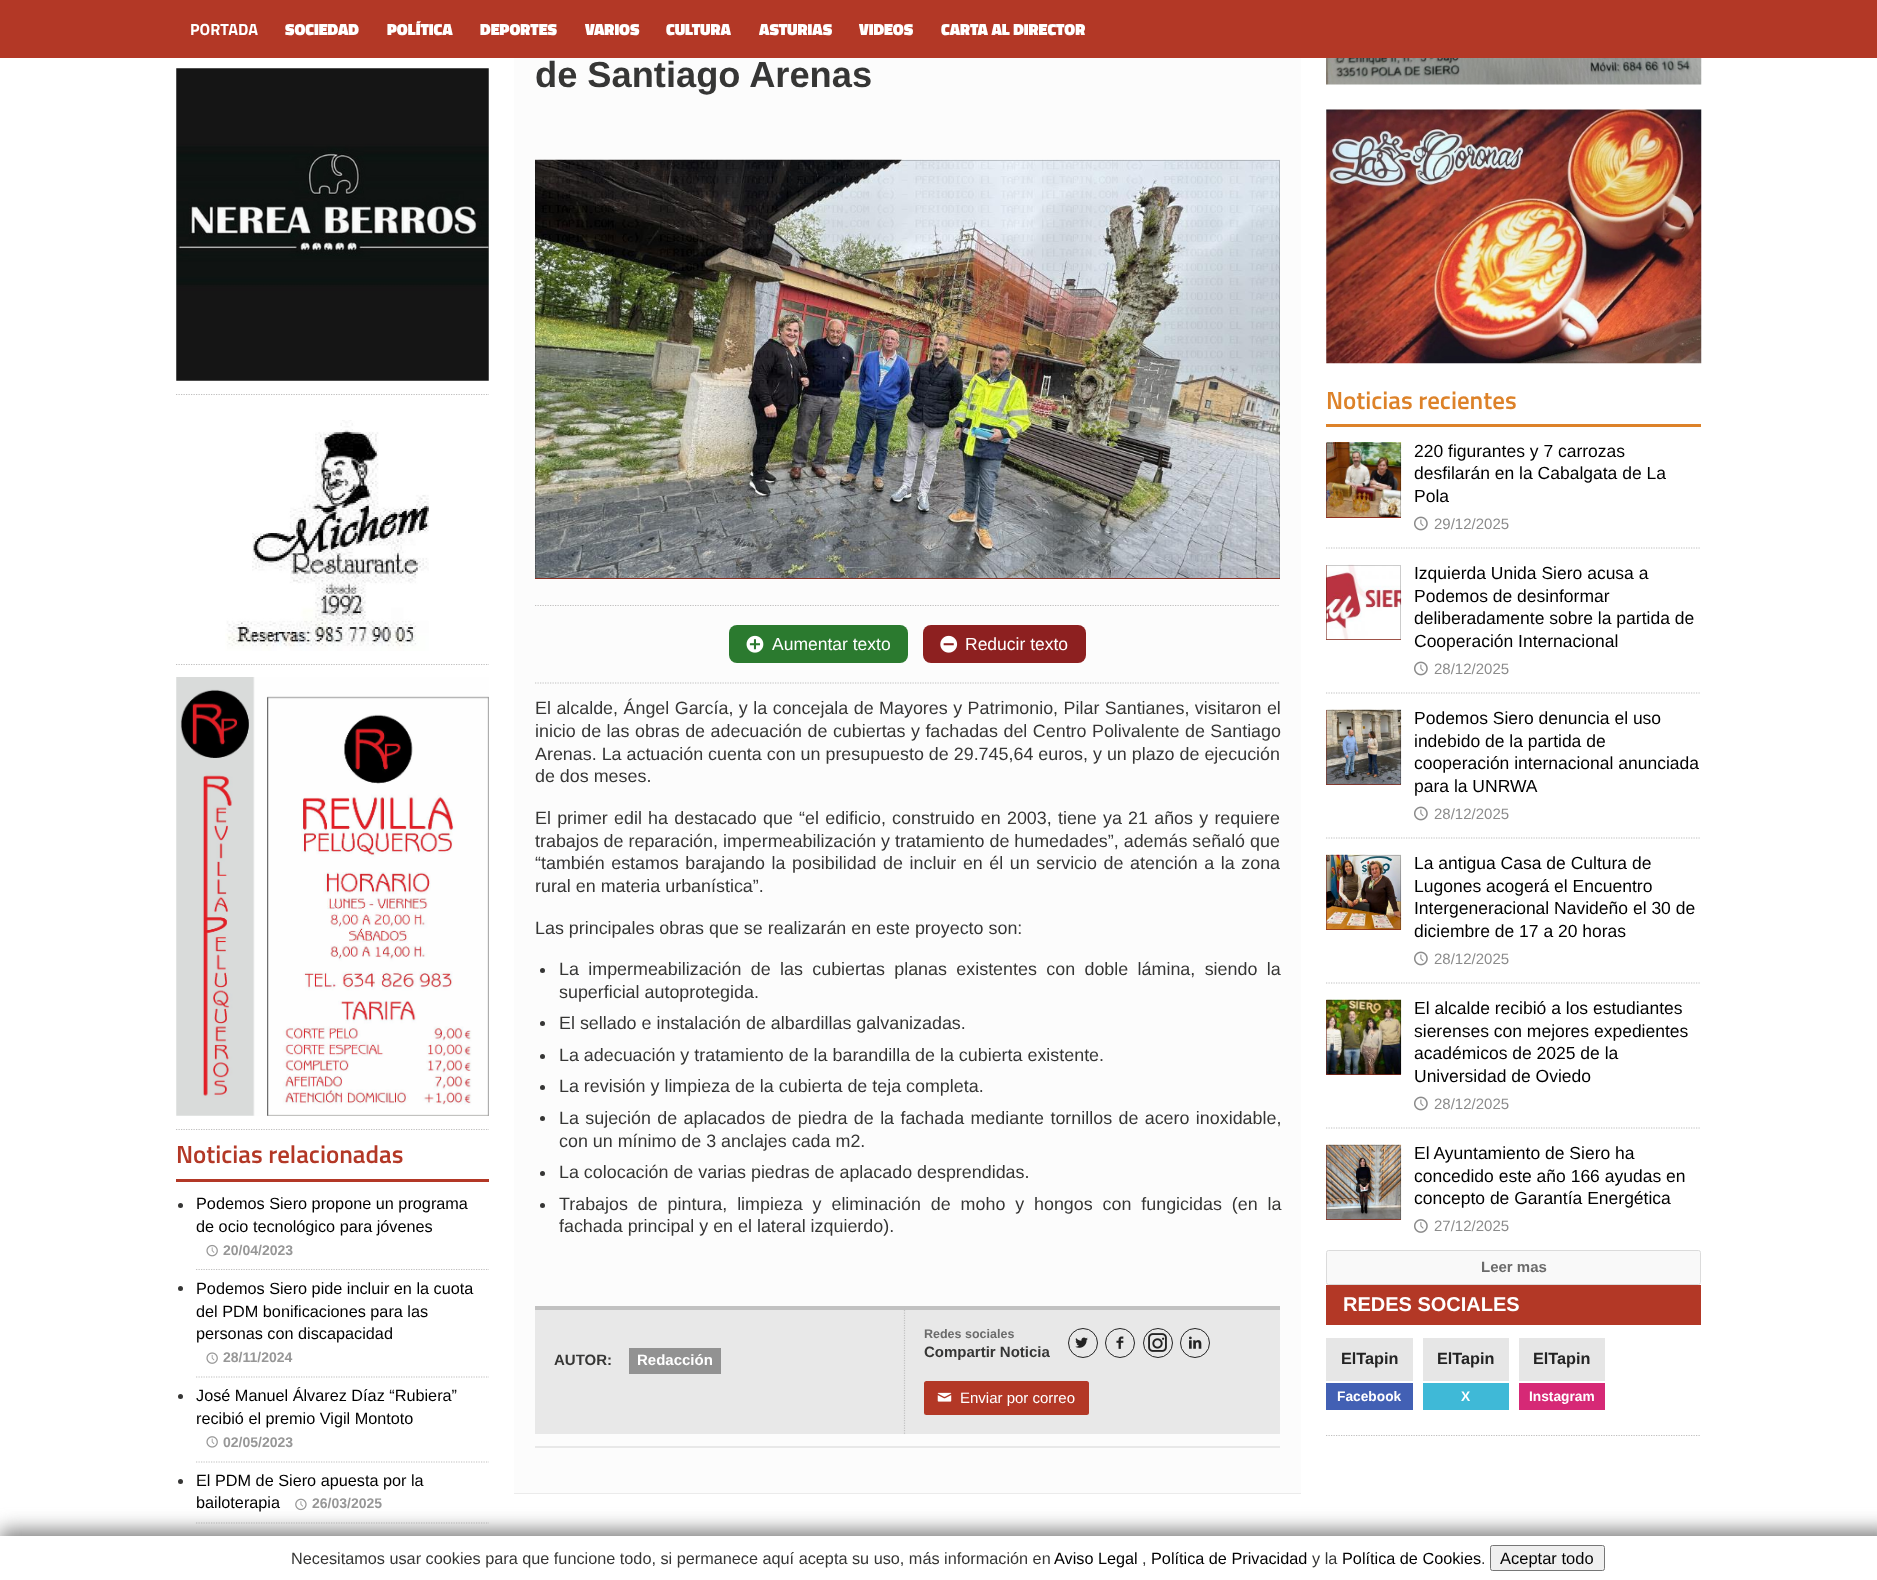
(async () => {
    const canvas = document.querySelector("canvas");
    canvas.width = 1877;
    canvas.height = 1580;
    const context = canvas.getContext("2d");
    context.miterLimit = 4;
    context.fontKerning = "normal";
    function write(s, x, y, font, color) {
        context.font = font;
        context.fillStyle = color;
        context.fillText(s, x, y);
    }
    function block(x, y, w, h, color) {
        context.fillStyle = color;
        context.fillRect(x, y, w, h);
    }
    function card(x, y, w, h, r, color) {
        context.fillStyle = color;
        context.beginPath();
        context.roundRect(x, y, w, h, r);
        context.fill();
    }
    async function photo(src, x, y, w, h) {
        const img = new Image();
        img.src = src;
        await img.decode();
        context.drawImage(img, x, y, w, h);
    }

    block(0, 0, 1877, 1580, "rgb(255, 255, 255)");
    context.fillStyle = "rgba(0, 0, 0, 0.08)";
    context.filter = "blur(0.5px)";
    context.beginPath();
    context.rect(514, -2, 787, 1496);
    context.fill();
    context.filter = "none";
    block(0, 0, 1877, 58, "rgb(179, 56, 38)");
    write("PORTADA", 190, 35, "bold 16.25px Titillium Web", "rgb(255, 255, 255)");
    write("SOCIEDAD", 285, 35, "900 16.25px Titillium Web", "rgb(255, 255, 255)");
    write("POLÍTICA", 387, 35, "900 16.25px Titillium Web", "rgb(255, 255, 255)");
    write("DEPORTES", 480, 35, "900 16.25px Titillium Web", "rgb(255, 255, 255)");
    write("VARIOS", 585, 35, "900 16.25px Titillium Web", "rgb(255, 255, 255)");
    write("CULTURA", 666, 35, "900 16.25px Titillium Web", "rgb(255, 255, 255)");
    write("ASTURIAS", 759, 35, "900 16.25px Titillium Web", "rgb(255, 255, 255)");
    write("VIDEOS", 859, 35, "900 16.25px Titillium Web", "rgb(255, 255, 255)");
    write("CARTA AL DIRECTOR", 941, 35, "900 16.25px Titillium Web", "rgb(255, 255, 255)");
    context.beginPath();
    context.moveTo(176, 394.5);
    context.lineTo(489, 394.5);
    context.strokeStyle = "rgb(192, 191, 191)";
    context.lineWidth = 1.2;
    context.setLineDash([1.25, 1.25]);
    context.stroke();
    await photo("media/1.png", 176, 68, 313, 313);
    context.beginPath();
    context.moveTo(176, 664.5);
    context.lineTo(489, 664.5);
    context.stroke();
    await photo("media/2.png", 225, 420, 204, 231);
    context.beginPath();
    context.moveTo(176, 1129.5);
    context.lineTo(489, 1129.5);
    context.stroke();
    await photo("media/3.png", 176, 677, 313, 439);
    block(176, 1179, 313, 3, "rgb(179, 56, 38)");
    write("Noticias relacionadas", 176, 1163, "600 25px Titillium Web", "rgb(179, 56, 38)");
    context.beginPath();
    context.moveTo(196, 1269.5);
    context.lineTo(489, 1269.5);
    context.stroke();
    context.fillStyle = "rgb(54, 54, 53)";
    context.beginPath();
    context.arc(180.5, 1205.5, 2.5, 0, Math.PI * 2);
    context.fill();
    write("Podemos Siero propone un programa", 196, 1209, "16.25px Liberation Sans", "rgb(0, 0, 0)");
    write("de ocio tecnológico para jóvenes", 196, 1232, "16.25px Liberation Sans", "rgb(0, 0, 0)");
    await photo("media/4.png", 206, 1244, 12, 13);
    write("20/04/2023", 223, 1255, "bold 14px Liberation Sans", "rgb(151, 151, 151)");
    context.beginPath();
    context.moveTo(196, 1377);
    context.lineTo(489, 1377);
    context.stroke();
    context.fillStyle = "rgb(54, 54, 53)";
    context.beginPath();
    context.arc(180.5, 1288.5, 2.5, 0, Math.PI * 2);
    context.fill();
    write("Podemos Siero pide incluir en la cuota", 196, 1294, "16.25px Liberation Sans", "rgb(0, 0, 0)");
    write("del PDM bonificaciones para las", 196, 1317, "16.25px Liberation Sans", "rgb(0, 0, 0)");
    write("personas con discapacidad", 196, 1339, "16.25px Liberation Sans", "rgb(0, 0, 0)");
    await photo("media/5.png", 206, 1352, 12, 12);
    write("28/11/2024", 223, 1362, "bold 14px Liberation Sans", "rgb(151, 151, 151)");
    context.beginPath();
    context.moveTo(196, 1462);
    context.lineTo(489, 1462);
    context.stroke();
    context.fillStyle = "rgb(54, 54, 53)";
    context.beginPath();
    context.arc(180.5, 1396.5, 2.5, 0, Math.PI * 2);
    context.fill();
    write("José Manuel Álvarez Díaz “Rubiera”", 196, 1401, "16.25px Liberation Sans", "rgb(0, 0, 0)");
    write("recibió el premio Vigil Montoto", 196, 1424, "16.25px Liberation Sans", "rgb(0, 0, 0)");
    await photo("media/6.png", 206, 1436, 12, 12);
    write("02/05/2023", 223, 1447, "bold 14px Liberation Sans", "rgb(151, 151, 151)");
    context.beginPath();
    context.moveTo(196, 1523);
    context.lineTo(489, 1523);
    context.stroke();
    context.fillStyle = "rgb(54, 54, 53)";
    context.beginPath();
    context.arc(180.5, 1481.5, 2.5, 0, Math.PI * 2);
    context.fill();
    write("El PDM de Siero apuesta por la", 196, 1486, "16.25px Liberation Sans", "rgb(0, 0, 0)");
    write("bailoterapia", 196, 1508, "16.25px Liberation Sans", "rgb(0, 0, 0)");
    await photo("media/7.png", 295, 1498, 12, 13);
    write("26/03/2025", 312, 1508, "bold 14px Liberation Sans", "rgb(151, 151, 151)");
    block(514, 58, 787, 1435, "rgb(252, 252, 252)");
    write("de Santiago Arenas", 535, 87, "bold 36.25px Liberation Sans", "rgb(54, 54, 53)");
    context.fillStyle = "rgba(0, 0, 0, 0.08)";
    context.filter = "blur(0.5px)";
    context.beginPath();
    context.rect(535, 130, 745, 1318);
    context.fill();
    context.filter = "none";
    block(535, 130, 745, 1316, "rgb(252, 252, 252)");
    block(535, 578, 745, 1, "rgb(179, 56, 38)");
    await photo("media/8.png", 535, 159, 745, 420);
    context.strokeStyle = "rgba(0, 0, 0, 0.2)";
    context.lineWidth = 1;
    context.setLineDash([]);
    context.strokeRect(535.5, 160.5, 744, 418);
    context.beginPath();
    context.moveTo(535, 605.5);
    context.lineTo(1280, 605.5);
    context.strokeStyle = "rgb(192, 191, 191)";
    context.lineWidth = 1.2;
    context.setLineDash([1.25, 1.25]);
    context.stroke();
    card(729, 625, 179, 38, 8, "rgb(43, 122, 47)");
    await photo("media/9.png", 746, 635, 18, 18);
    write("Aumentar texto", 772, 650, "17.5px Liberation Sans", "rgb(255, 255, 255)");
    card(923, 625, 163, 38, 8, "rgb(141, 32, 32)");
    await photo("media/10.png", 940, 635, 18, 18);
    write("Reducir texto", 965, 650, "17.5px Liberation Sans", "rgb(255, 255, 255)");
    context.beginPath();
    context.moveTo(535, 683);
    context.lineTo(1280, 683);
    context.stroke();
    context.wordSpacing = "0.5px";
    write("El alcalde, Ángel García, y la concejala de Mayores y Patrimonio, Pilar Santianes, visitaron el", 535, 714, "17.9px Liberation Sans", "rgb(54, 54, 53)");
    write("inicio de las obras de adecuación de cubiertas y fachadas del Centro Polivalente de Santiago", 535, 737, "17.9px Liberation Sans", "rgb(54, 54, 53)");
    context.wordSpacing = "0px";
    write("Arenas. La actuación cuenta con un presupuesto de 29.745,64 euros, y un plazo de ejecución", 535, 760, "17.9px Liberation Sans", "rgb(54, 54, 53)");
    write("de dos meses.", 535, 782, "17.9px Liberation Sans", "rgb(54, 54, 53)");
    context.wordSpacing = "1.25px";
    write("El primer edil ha destacado que “el edificio, construido en 2003, tiene ya 21 años y requiere", 535, 824, "17.9px Liberation Sans", "rgb(54, 54, 53)");
    context.wordSpacing = "0px";
    write("trabajos de reparación, impermeabilización y tratamiento de humedades”, además señaló que", 535, 847, "17.9px Liberation Sans", "rgb(54, 54, 53)");
    context.wordSpacing = "1.6px";
    write("“también estamos barajando la posibilidad de incluir en él un servicio de atención a la zona", 535, 869, "17.9px Liberation Sans", "rgb(54, 54, 53)");
    context.wordSpacing = "0px";
    write("rural en materia urbanística”.", 535, 892, "17.9px Liberation Sans", "rgb(54, 54, 53)");
    write("Las principales obras que se realizarán en este proyecto son:", 535, 934, "17.9px Liberation Sans", "rgb(54, 54, 53)");
    context.beginPath();
    context.arc(542.5, 970.5, 2.5, 0, Math.PI * 2);
    context.fill();
    context.wordSpacing = "4.4px";
    write("La impermeabilización de las cubiertas planas existentes con doble lámina, siendo la", 559, 975, "17.9px Liberation Sans", "rgb(54, 54, 53)");
    context.wordSpacing = "0px";
    write("superficial autoprotegida.", 559, 998, "17.9px Liberation Sans", "rgb(54, 54, 53)");
    context.beginPath();
    context.arc(542.5, 1023.5, 2.5, 0, Math.PI * 2);
    context.fill();
    write("El sellado e instalación de albardillas galvanizadas.", 559, 1029, "17.9px Liberation Sans", "rgb(54, 54, 53)");
    context.beginPath();
    context.arc(542.5, 1056.5, 2.5, 0, Math.PI * 2);
    context.fill();
    write("La adecuación y tratamiento de la barandilla de la cubierta existente.", 559, 1061, "17.9px Liberation Sans", "rgb(54, 54, 53)");
    context.beginPath();
    context.arc(542.5, 1087.5, 2.5, 0, Math.PI * 2);
    context.fill();
    write("La revisión y limpieza de la cubierta de teja completa.", 559, 1092, "17.9px Liberation Sans", "rgb(54, 54, 53)");
    context.beginPath();
    context.arc(542.5, 1118.5, 2.5, 0, Math.PI * 2);
    context.fill();
    context.wordSpacing = "1.4px";
    write("La sujeción de aplacados de piedra de la fachada mediante tornillos de acero inoxidable,", 559, 1124, "17.9px Liberation Sans", "rgb(54, 54, 53)");
    context.wordSpacing = "0px";
    write("con un mínimo de 3 anclajes cada m2.", 559, 1147, "17.9px Liberation Sans", "rgb(54, 54, 53)");
    context.beginPath();
    context.arc(542.5, 1173.5, 2.5, 0, Math.PI * 2);
    context.fill();
    write("La colocación de varias piedras de aplacado desprendidas.", 559, 1178, "17.9px Liberation Sans", "rgb(54, 54, 53)");
    context.beginPath();
    context.arc(542.5, 1205.5, 2.5, 0, Math.PI * 2);
    context.fill();
    context.wordSpacing = "4.9px";
    write("Trabajos de pintura, limpieza y eliminación de moho y hongos con fungicidas (en la", 559, 1210, "17.9px Liberation Sans", "rgb(54, 54, 53)");
    context.wordSpacing = "0px";
    write("fachada principal y en el lateral izquierdo).", 559, 1232, "17.9px Liberation Sans", "rgb(54, 54, 53)");
    block(535, 1310, 745, 124, "rgb(232, 232, 232)");
    block(535, 1306, 745, 4, "rgb(193, 193, 193)");
    write("AUTOR:", 554, 1365, "bold 15px Liberation Sans", "rgb(54, 54, 53)");
    block(629, 1348, 92, 26, "rgb(146, 146, 146)");
    write("Redacción", 637, 1365, "bold 15px Liberation Sans", "rgb(255, 255, 255)");
    context.beginPath();
    context.moveTo(904.5, 1310);
    context.lineTo(904.5, 1434);
    context.strokeStyle = "rgb(193, 193, 193)";
    context.stroke();
    write("Redes sociales", 924, 1338, "bold 12.5px Liberation Sans", "rgb(107, 107, 107)");
    write("Compartir Noticia", 924, 1357, "bold 15px Liberation Sans", "rgb(54, 54, 53)");
    context.beginPath();
    context.arc(1083, 1343, 14.5, 0, Math.PI * 2);
    context.strokeStyle = "rgb(35, 35, 35)";
    context.lineWidth = 1;
    context.setLineDash([]);
    context.stroke();
    await photo("media/11.png", 1075, 1337, 13, 11);
    context.beginPath();
    context.arc(1120, 1343, 14.5, 0, Math.PI * 2);
    context.stroke();
    await photo("media/12.png", 1116, 1336, 8, 13);
    context.beginPath();
    context.arc(1158, 1343, 14.5, 0, Math.PI * 2);
    context.stroke();
    await photo("media/13.png", 1148, 1333, 19, 19);
    context.beginPath();
    context.arc(1195, 1343, 14.5, 0, Math.PI * 2);
    context.stroke();
    await photo("media/14.png", 1189, 1336, 13, 13);
    card(924, 1381, 165, 34, 2.5, "rgb(179, 56, 38)");
    await photo("media/15.png", 937, 1392, 15, 10);
    write("Enviar por correo", 960, 1403, "15px Liberation Sans", "rgb(255, 255, 255)");
    await photo("media/16.png", 1326, 58, 376, 27);
    await photo("media/17.png", 1326, 109, 376, 255);
    block(1326, 424, 375, 3, "rgb(221, 130, 41)");
    write("Noticias recientes", 1326, 409, "600 25px Titillium Web", "rgb(221, 130, 41)");
    context.beginPath();
    context.moveTo(1326, 548);
    context.lineTo(1701, 548);
    context.strokeStyle = "rgb(192, 191, 191)";
    context.lineWidth = 1.2;
    context.setLineDash([1.25, 1.25]);
    context.stroke();
    block(1326, 443, 75, 75, "rgb(179, 56, 38)");
    await photo("media/18.png", 1326, 442, 76, 75);
    context.strokeStyle = "rgba(0, 0, 0, 0.2)";
    context.lineWidth = 1;
    context.setLineDash([]);
    context.strokeRect(1326.5, 443.5, 74, 74);
    write("220 figurantes y 7 carrozas", 1414, 457, "17.5px Liberation Sans", "rgb(0, 0, 0)");
    write("desfilarán en la Cabalgata de La", 1414, 479, "17.5px Liberation Sans", "rgb(0, 0, 0)");
    write("Pola", 1414, 502, "17.5px Liberation Sans", "rgb(0, 0, 0)");
    await photo("media/19.png", 1414, 516, 14, 15);
    write("29/12/2025", 1434, 529, "15px Liberation Sans", "rgb(139, 139, 139)");
    context.beginPath();
    context.moveTo(1326, 693);
    context.lineTo(1701, 693);
    context.strokeStyle = "rgb(192, 191, 191)";
    context.lineWidth = 1.2;
    context.setLineDash([1.25, 1.25]);
    context.stroke();
    block(1326, 565, 75, 75, "rgb(179, 56, 38)");
    await photo("media/20.png", 1326, 564, 76, 76);
    context.strokeStyle = "rgba(0, 0, 0, 0.2)";
    context.lineWidth = 1;
    context.setLineDash([]);
    context.strokeRect(1326.5, 565.5, 74, 74);
    write("Izquierda Unida Siero acusa a", 1414, 579, "17.5px Liberation Sans", "rgb(0, 0, 0)");
    write("Podemos de desinformar", 1414, 602, "17.5px Liberation Sans", "rgb(0, 0, 0)");
    write("deliberadamente sobre la partida de", 1414, 624, "17.5px Liberation Sans", "rgb(0, 0, 0)");
    write("Cooperación Internacional", 1414, 647, "17.5px Liberation Sans", "rgb(0, 0, 0)");
    await photo("media/19.png", 1414, 661, 14, 15);
    write("28/12/2025", 1434, 674, "15px Liberation Sans", "rgb(139, 139, 139)");
    context.beginPath();
    context.moveTo(1326, 838);
    context.lineTo(1701, 838);
    context.strokeStyle = "rgb(192, 191, 191)";
    context.lineWidth = 1.2;
    context.setLineDash([1.25, 1.25]);
    context.stroke();
    block(1326, 710, 75, 75, "rgb(179, 56, 38)");
    await photo("media/21.png", 1326, 709, 76, 76);
    context.strokeStyle = "rgba(0, 0, 0, 0.2)";
    context.lineWidth = 1;
    context.setLineDash([]);
    context.strokeRect(1326.5, 710.5, 74, 74);
    write("Podemos Siero denuncia el uso", 1414, 724, "17.5px Liberation Sans", "rgb(0, 0, 0)");
    write("indebido de la partida de", 1414, 747, "17.5px Liberation Sans", "rgb(0, 0, 0)");
    write("cooperación internacional anunciada", 1414, 769, "17.5px Liberation Sans", "rgb(0, 0, 0)");
    write("para la UNRWA", 1414, 792, "17.5px Liberation Sans", "rgb(0, 0, 0)");
    await photo("media/19.png", 1414, 806, 14, 15);
    write("28/12/2025", 1434, 819, "15px Liberation Sans", "rgb(139, 139, 139)");
    context.beginPath();
    context.moveTo(1326, 983);
    context.lineTo(1701, 983);
    context.strokeStyle = "rgb(192, 191, 191)";
    context.lineWidth = 1.2;
    context.setLineDash([1.25, 1.25]);
    context.stroke();
    block(1326, 855, 75, 75, "rgb(179, 56, 38)");
    await photo("media/22.png", 1326, 854, 76, 76);
    context.strokeStyle = "rgba(0, 0, 0, 0.2)";
    context.lineWidth = 1;
    context.setLineDash([]);
    context.strokeRect(1326.5, 855.5, 74, 74);
    write("La antigua Casa de Cultura de", 1414, 869, "17.5px Liberation Sans", "rgb(0, 0, 0)");
    write("Lugones acogerá el Encuentro", 1414, 892, "17.5px Liberation Sans", "rgb(0, 0, 0)");
    write("Intergeneracional Navideño el 30 de", 1414, 914, "17.5px Liberation Sans", "rgb(0, 0, 0)");
    write("diciembre de 17 a 20 horas", 1414, 937, "17.5px Liberation Sans", "rgb(0, 0, 0)");
    await photo("media/19.png", 1414, 951, 14, 15);
    write("28/12/2025", 1434, 964, "15px Liberation Sans", "rgb(139, 139, 139)");
    context.beginPath();
    context.moveTo(1326, 1128);
    context.lineTo(1701, 1128);
    context.strokeStyle = "rgb(192, 191, 191)";
    context.lineWidth = 1.2;
    context.setLineDash([1.25, 1.25]);
    context.stroke();
    block(1326, 1000, 75, 75, "rgb(179, 56, 38)");
    await photo("media/23.png", 1326, 999, 76, 76);
    context.strokeStyle = "rgba(0, 0, 0, 0.2)";
    context.lineWidth = 1;
    context.setLineDash([]);
    context.strokeRect(1326.5, 1000.5, 74, 74);
    write("El alcalde recibió a los estudiantes", 1414, 1014, "17.5px Liberation Sans", "rgb(0, 0, 0)");
    write("sierenses con mejores expedientes", 1414, 1037, "17.5px Liberation Sans", "rgb(0, 0, 0)");
    write("académicos de 2025 de la", 1414, 1059, "17.5px Liberation Sans", "rgb(0, 0, 0)");
    write("Universidad de Oviedo", 1414, 1082, "17.5px Liberation Sans", "rgb(0, 0, 0)");
    await photo("media/19.png", 1414, 1096, 14, 15);
    write("28/12/2025", 1434, 1109, "15px Liberation Sans", "rgb(139, 139, 139)");
    block(1326, 1145, 75, 75, "rgb(179, 56, 38)");
    await photo("media/24.png", 1326, 1144, 76, 76);
    context.strokeRect(1326.5, 1145.5, 74, 74);
    write("El Ayuntamiento de Siero ha", 1414, 1159, "17.5px Liberation Sans", "rgb(0, 0, 0)");
    write("concedido este año 166 ayudas en", 1414, 1182, "17.5px Liberation Sans", "rgb(0, 0, 0)");
    write("concepto de Garantía Energética", 1414, 1204, "17.5px Liberation Sans", "rgb(0, 0, 0)");
    await photo("media/25.png", 1414, 1219, 14, 14);
    write("27/12/2025", 1434, 1231, "15px Liberation Sans", "rgb(139, 139, 139)");
    context.fillStyle = "rgb(249, 249, 249)";
    context.beginPath();
    context.roundRect(1326.5, 1250.5, 374, 34, 2);
    context.fill();
    context.strokeStyle = "rgb(219, 219, 219)";
    context.stroke();
    write("Leer mas", 1481, 1272, "bold 15px Liberation Sans", "rgb(107, 107, 107)");
    block(1326, 1285, 375, 40, "rgb(179, 56, 38)");
    write("REDES SOCIALES", 1343, 1311, "bold 20px Liberation Sans", "rgb(255, 255, 255)");
    context.beginPath();
    context.moveTo(1326, 1435.5);
    context.lineTo(1701, 1435.5);
    context.strokeStyle = "rgb(192, 191, 191)";
    context.lineWidth = 1.2;
    context.setLineDash([1.25, 1.25]);
    context.stroke();
    block(1326, 1338, 87, 43, "rgb(230, 230, 230)");
    write("ElTapin", 1341, 1364, "bold 16.25px Liberation Sans", "rgb(35, 35, 35)");
    block(1326, 1383, 87, 27, "rgb(66, 96, 180)");
    write("Facebook", 1337, 1401, "bold 13.75px Liberation Sans", "rgb(255, 255, 255)");
    block(1423, 1338, 86, 43, "rgb(230, 230, 230)");
    write("ElTapin", 1437, 1364, "bold 16.25px Liberation Sans", "rgb(35, 35, 35)");
    block(1423, 1383, 86, 27, "rgb(63, 185, 215)");
    write("X", 1461, 1401, "bold 13.75px Liberation Sans", "rgb(255, 255, 255)");
    block(1519, 1338, 86, 43, "rgb(230, 230, 230)");
    write("ElTapin", 1533, 1364, "bold 16.25px Liberation Sans", "rgb(35, 35, 35)");
    block(1519, 1383, 86, 27, "rgb(214, 41, 118)");
    write("Instagram", 1529, 1401, "bold 13.75px Liberation Sans", "rgb(255, 255, 255)");
    context.fillStyle = "rgb(128, 128, 128)";
    context.filter = "blur(9.5px)";
    context.beginPath();
    context.rect(0, 1530, 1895, 44);
    context.fill();
    context.filter = "none";
    block(0, 1536, 1877, 44, "rgb(255, 255, 255)");
    write("Necesitamos usar cookies para que funcione todo, si permanece aquí acepta su uso, más información en", 291, 1564, "16.25px Liberation Sans", "rgb(54, 54, 53)");
    write("Aviso Legal", 1054, 1564, "16.25px Liberation Sans", "rgb(0, 0, 0)");
    write(",", 1142, 1564, "16.25px Liberation Sans", "rgb(54, 54, 53)");
    write("Política de Privacidad", 1151, 1564, "16.25px Liberation Sans", "rgb(0, 0, 0)");
    write("y la", 1312, 1564, "16.25px Liberation Sans", "rgb(54, 54, 53)");
    write("Política de Cookies", 1342, 1564, "16.25px Liberation Sans", "rgb(0, 0, 0)");
    write(".", 1481, 1564, "16.25px Liberation Sans", "rgb(54, 54, 53)");
    context.fillStyle = "rgb(239, 239, 239)";
    context.beginPath();
    context.roundRect(1490.5, 1545.5, 114, 25, 2);
    context.fill();
    context.strokeStyle = "rgb(118, 118, 118)";
    context.lineWidth = 1;
    context.setLineDash([]);
    context.stroke();
    write("Aceptar todo", 1500, 1564, "16.5px Liberation Sans", "rgb(0, 0, 0)");
})();
